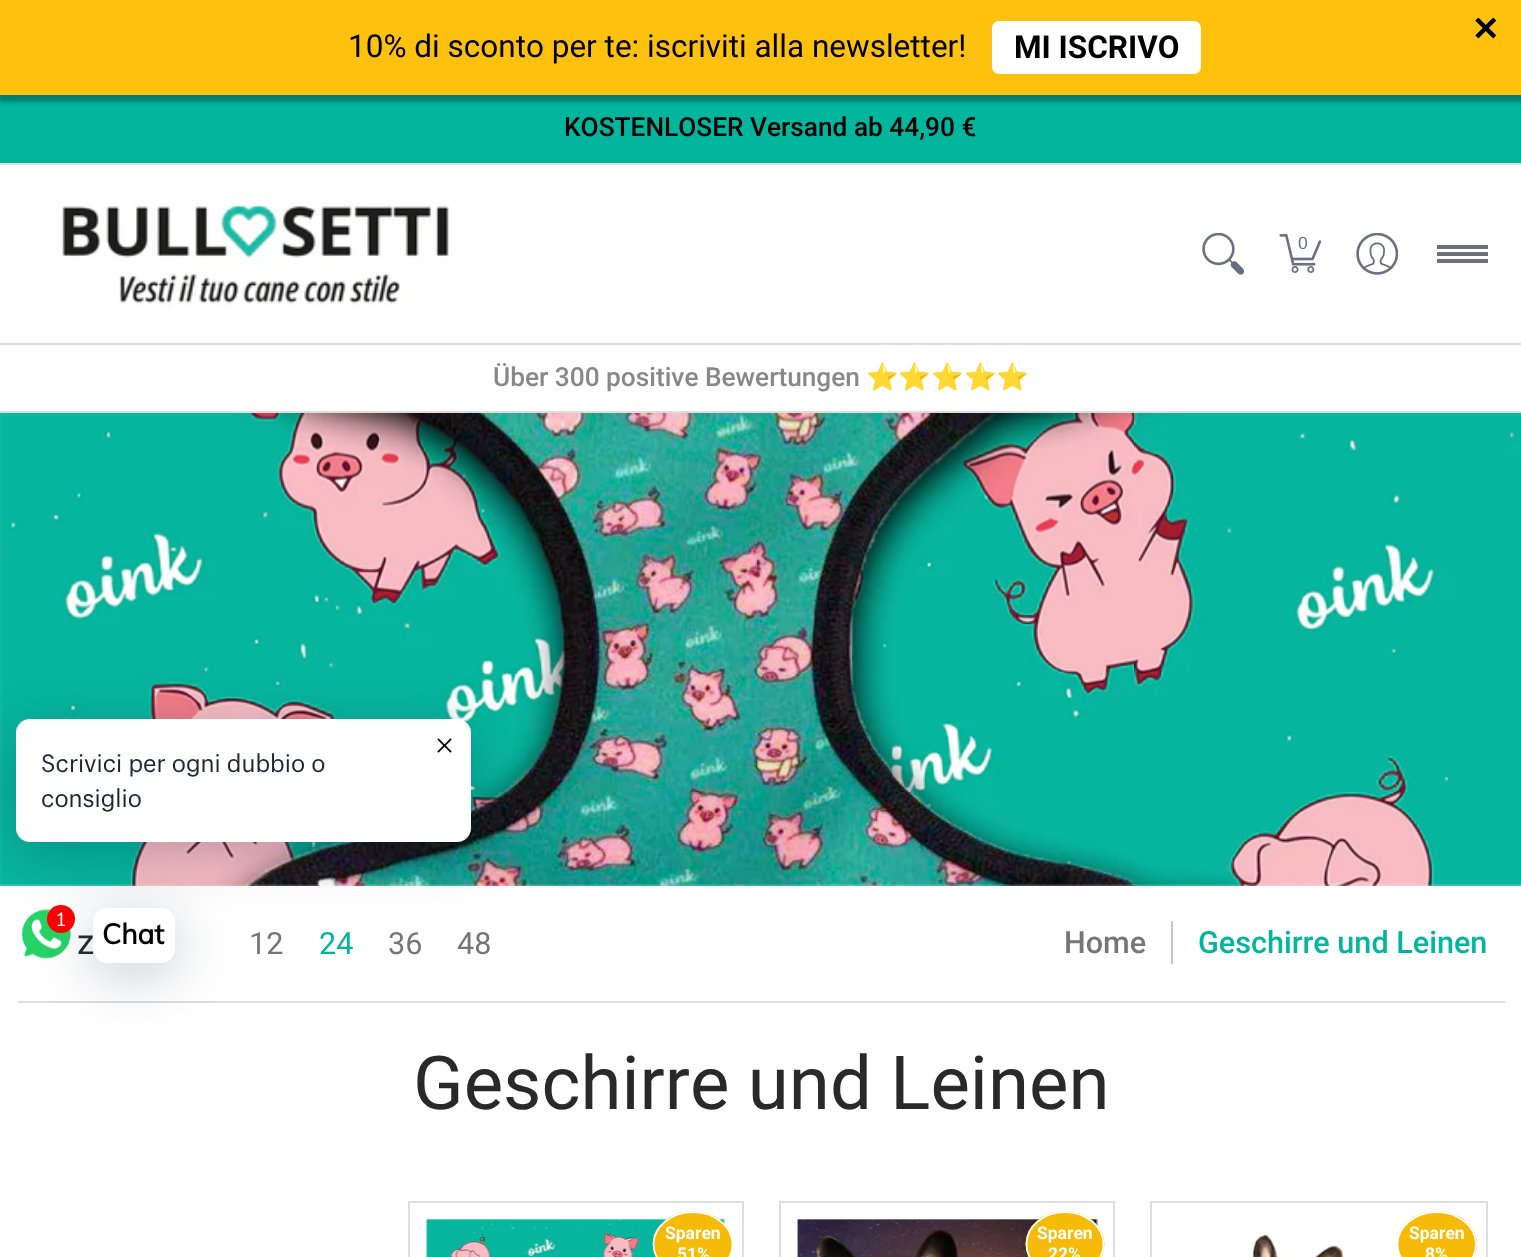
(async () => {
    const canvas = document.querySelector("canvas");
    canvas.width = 1521;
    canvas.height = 1257;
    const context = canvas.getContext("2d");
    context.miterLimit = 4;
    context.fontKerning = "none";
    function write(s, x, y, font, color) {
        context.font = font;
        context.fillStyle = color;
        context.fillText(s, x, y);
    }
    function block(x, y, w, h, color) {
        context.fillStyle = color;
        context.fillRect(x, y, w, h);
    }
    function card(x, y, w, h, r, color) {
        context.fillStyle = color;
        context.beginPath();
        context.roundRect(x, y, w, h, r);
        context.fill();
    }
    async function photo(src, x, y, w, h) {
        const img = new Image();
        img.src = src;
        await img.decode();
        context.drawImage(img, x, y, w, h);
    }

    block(0, 0, 1521, 1257, "rgb(255, 255, 255)");
    block(0, 95, 1521, 68, "rgb(2, 182, 158)");
    context.fillStyle = "rgba(0, 0, 0, 0.3)";
    context.filter = "blur(2px)";
    context.beginPath();
    context.rect(-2, 4, 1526, 98);
    context.fill();
    context.filter = "none";
    block(0, 0, 1521, 95, "rgb(253, 193, 14)");
    await photo("media/1.png", 1475, 18, 21, 21);
    write("10% di sconto per te: iscriviti alla newsletter!", 348, 57, "31.5px Roboto", "rgb(0, 0, 0)");
    card(992, 21, 209, 53, 7, "rgb(255, 255, 255)");
    write("MI ISCRIVO", 1014, 58, "bold 31.5px Roboto", "rgb(0, 0, 0)");
    block(0, 163, 1521, 2, "rgb(222, 222, 222)");
    write("KOSTENLOSER Versand ab 44,90 €", 564, 136, "500 26.25px Roboto", "rgb(0, 0, 0)");
    block(0, 343, 1521, 2, "rgb(222, 222, 222)");
    await photo("media/2.png", 62, 202, 387, 106);
    await photo("media/3.png", 1202, 233, 42, 42);
    await photo("media/4.png", 1279, 234, 42, 39);
    write("0", 1298, 249, "17.5px Liberation Sans", "rgb(107, 111, 129)");
    await photo("media/5.png", 1356, 233, 42, 42);
    block(1437, 245, 51, 4, "rgb(107, 111, 129)");
    block(1437, 259, 51, 4, "rgb(107, 111, 129)");
    block(1437, 252, 51, 4, "rgb(107, 111, 129)");
    block(0, 411, 1521, 2, "rgb(222, 222, 222)");
    write("Über 300 positive Bewertungen", 493, 386, "500 26.25px Roboto", "rgb(136, 136, 136)");
    write("⭐⭐⭐⭐⭐", 866, 386, "26.25px Noto Color Emoji", "rgb(136, 136, 136)");
    await photo("media/8.png", 0, 413, 1521, 473);
    context.fillStyle = "rgba(0, 18, 46, 0.24)";
    context.filter = "blur(28px)";
    context.beginPath();
    context.roundRect(16, 730, 455, 122, 14);
    context.fill();
    context.filter = "none";
    card(16, 719, 455, 123, 14, "rgb(255, 255, 255)");
    await photo("media/6.png", 437, 738, 15, 15);
    write("Scrivici per ogni dubbio o", 41, 772, "24.5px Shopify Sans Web", "rgb(30, 36, 51)");
    write("consiglio", 41, 807, "24.5px Shopify Sans Web", "rgb(30, 36, 51)");
    await photo("media/7.png", 22, 909, 49, 50);
    block(18, 1001, 1487, 2, "rgb(222, 222, 222)");
    context.fillStyle = "rgba(0, 18, 46, 0.24)";
    context.filter = "blur(28px)";
    context.beginPath();
    context.roundRect(93, 919, 82, 54, 14);
    context.fill();
    context.filter = "none";
    context.fillStyle = "rgb(255, 0, 0)";
    context.beginPath();
    context.arc(61, 919, 14, 0, Math.PI * 2);
    context.fill();
    write("1", 57, 926, "19px Shopify Sans Web", "rgb(255, 255, 255)");
    write("z", 77, 954, "35px Roboto", "rgb(41, 41, 41)");
    card(93, 908, 82, 55, 14, "rgb(255, 255, 255)");
    write("Chat", 102, 944, "bold 28px Muli", "rgb(0, 0, 0)");
    write("12", 249, 954, "30.6px Roboto", "rgb(118, 118, 118)");
    write("24", 319, 954, "30.6px Roboto", "rgb(0, 182, 158)");
    write("36", 388, 954, "30.6px Roboto", "rgb(118, 118, 118)");
    write("48", 457, 954, "30.6px Roboto", "rgb(118, 118, 118)");
    write("Home", 1064, 953, "500 30.6px Roboto", "rgb(118, 118, 118)");
    block(1171, 921, 2, 43, "rgb(197, 197, 197)");
    write("Geschirre und Leinen", 1198, 953, "500 30.6px Roboto", "rgb(0, 182, 158)");
    write("Geschirre und Leinen", 413, 1109, "74.4px Roboto", "rgb(41, 41, 41)");
    context.strokeStyle = "rgb(222, 222, 222)";
    context.lineWidth = 2;
    context.strokeRect(409, 1202, 334, 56);
    await photo("media/9.png", 426, 1219, 299, 38);
    context.fillStyle = "rgb(246, 187, 9)";
    context.beginPath();
    context.ellipse(693, 1244, 40, 33, 0, 0, Math.PI * 2);
    context.fill();
    context.beginPath();
    context.moveTo(693, 1212);
    context.bezierCurveTo(714.5, 1212, 732.5, 1226.5, 732.5, 1244);
    context.bezierCurveTo(732.5, 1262, 714.5, 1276.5, 693, 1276.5);
    context.bezierCurveTo(671.5, 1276.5, 653.5, 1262, 653.5, 1244);
    context.bezierCurveTo(653.5, 1226.5, 671.5, 1212, 693, 1212);
    context.closePath();
    context.strokeStyle = "rgb(255, 255, 255)";
    context.lineWidth = 1.8;
    context.stroke();
    write("Sparen", 665, 1239, "bold 17.5px Roboto", "rgb(255, 255, 255)");
    write("51%", 677, 1260, "bold 17.5px Roboto", "rgb(255, 255, 255)");
    context.strokeStyle = "rgb(222, 222, 222)";
    context.lineWidth = 2;
    context.strokeRect(780, 1202, 334, 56);
    await photo("media/10.png", 797, 1219, 301, 38);
    context.fillStyle = "rgb(246, 187, 9)";
    context.beginPath();
    context.ellipse(1065, 1244, 39.5, 33, 0, 0, Math.PI * 2);
    context.fill();
    context.beginPath();
    context.moveTo(1065, 1212);
    context.bezierCurveTo(1086, 1212, 1103.5, 1226.5, 1103.5, 1244);
    context.bezierCurveTo(1103.5, 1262, 1086, 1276.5, 1065, 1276.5);
    context.bezierCurveTo(1043.5, 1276.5, 1026.5, 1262, 1026.5, 1244);
    context.bezierCurveTo(1026.5, 1226.5, 1043.5, 1212, 1065, 1212);
    context.closePath();
    context.strokeStyle = "rgb(255, 255, 255)";
    context.lineWidth = 1.8;
    context.stroke();
    write("Sparen", 1037, 1239, "bold 17.5px Roboto", "rgb(255, 255, 255)");
    write("22%", 1048, 1260, "bold 17.5px Roboto", "rgb(255, 255, 255)");
    context.strokeStyle = "rgb(222, 222, 222)";
    context.lineWidth = 2;
    context.strokeRect(1151, 1202, 336, 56);
    await photo("media/11.png", 1252, 1234, 92, 23);
    context.fillStyle = "rgb(246, 187, 9)";
    context.beginPath();
    context.ellipse(1437, 1244, 40, 33, 0, 0, Math.PI * 2);
    context.fill();
    context.beginPath();
    context.moveTo(1437, 1212);
    context.bezierCurveTo(1458.5, 1212, 1476, 1226.5, 1476, 1244);
    context.bezierCurveTo(1476, 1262, 1458.5, 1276.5, 1437, 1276.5);
    context.bezierCurveTo(1415, 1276.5, 1397.5, 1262, 1397.5, 1244);
    context.bezierCurveTo(1397.5, 1226.5, 1415, 1212, 1437, 1212);
    context.closePath();
    context.strokeStyle = "rgb(255, 255, 255)";
    context.lineWidth = 1.8;
    context.stroke();
    write("Sparen", 1409, 1239, "bold 17.5px Roboto", "rgb(255, 255, 255)");
    write("8%", 1425, 1260, "bold 17.5px Roboto", "rgb(255, 255, 255)");
})();
